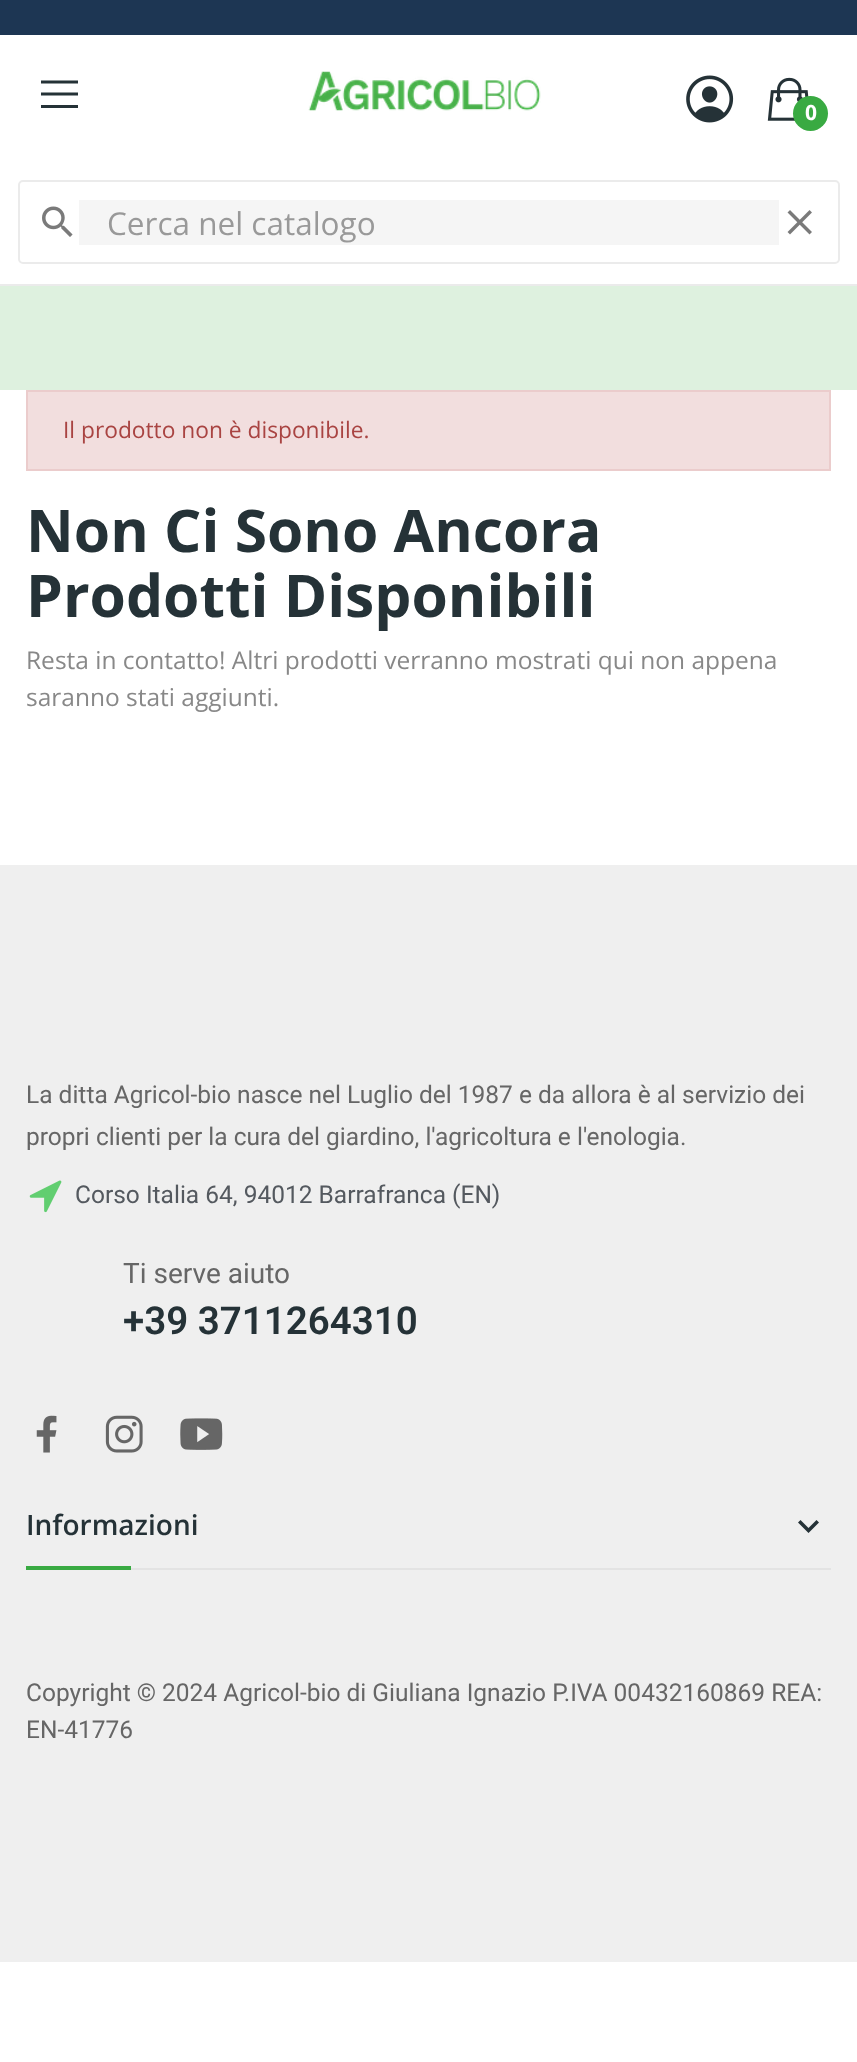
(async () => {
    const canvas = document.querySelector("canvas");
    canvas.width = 857;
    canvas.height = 2062;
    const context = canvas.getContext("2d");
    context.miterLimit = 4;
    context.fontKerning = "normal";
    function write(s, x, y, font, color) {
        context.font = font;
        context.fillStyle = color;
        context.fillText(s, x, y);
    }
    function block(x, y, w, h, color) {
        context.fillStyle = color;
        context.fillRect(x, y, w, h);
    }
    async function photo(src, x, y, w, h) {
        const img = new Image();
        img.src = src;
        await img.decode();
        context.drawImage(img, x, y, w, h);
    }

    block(0, 0, 857, 2062, "rgb(255, 255, 255)");
    block(0, 284, 857, 2, "rgb(235, 235, 235)");
    block(0, 0, 857, 35, "rgb(29, 54, 83)");
    context.fillStyle = "rgb(37, 50, 55)";
    context.beginPath();
    context.moveTo(41, 80.5);
    context.lineTo(41, 83.5);
    context.lineTo(78, 83.5);
    context.lineTo(78, 80.5);
    context.closePath();
    context.moveTo(41, 92.5);
    context.lineTo(41, 95.5);
    context.lineTo(78, 95.5);
    context.lineTo(78, 92.5);
    context.closePath();
    context.moveTo(41, 105);
    context.lineTo(41, 108);
    context.lineTo(78, 108);
    context.lineTo(78, 105);
    context.closePath();
    context.fill();
    await photo("media/1.png", 308, 71, 233, 40);
    await photo("media/2.png", 686, 75, 48, 48);
    await photo("media/3.png", 767, 77, 42, 44);
    context.fillStyle = "rgb(57, 170, 66)";
    context.beginPath();
    context.arc(810.5, 113.5, 17.5, 0, Math.PI * 2);
    context.fill();
    write("0", 805, 120, "bold 21px Open Sans", "rgb(255, 255, 255)");
    context.beginPath();
    context.roundRect(19, 181, 820, 82, 4);
    context.strokeStyle = "rgb(235, 235, 235)";
    context.lineWidth = 2;
    context.stroke();
    await photo("media/4.png", 42, 206, 31, 31);
    block(79, 200, 700, 45, "rgb(245, 245, 245)");
    write("Cerca nel catalogo", 107, 235, "31.5px Open Sans", "rgb(153, 153, 153)");
    await photo("media/5.png", 787, 210, 25, 25);
    block(0, 286, 857, 104, "rgb(222, 241, 223)");
    context.fillStyle = "rgb(242, 222, 222)";
    context.beginPath();
    context.rect(27, 391, 803, 79);
    context.fill();
    context.strokeStyle = "rgb(235, 204, 204)";
    context.stroke();
    write("Il prodotto non è disponibile.", 63, 438, "22.75px Open Sans", "rgb(169, 68, 66)");
    write("Non Ci Sono Ancora", 26, 552, "bold 58.75px Open Sans", "rgb(37, 50, 55)");
    write("Prodotti Disponibili", 26, 617, "bold 58.75px Open Sans", "rgb(37, 50, 55)");
    write("Resta in contatto! Altri prodotti verranno mostrati qui non appena", 26, 669, "24.5px Open Sans", "rgb(136, 136, 136)");
    write("saranno stati aggiunti.", 26, 706, "24.5px Open Sans", "rgb(136, 136, 136)");
    block(0, 865, 857, 1097, "rgb(239, 239, 239)");
    write("La ditta Agricol-bio nasce nel Luglio del 1987 e da allora è al servizio dei", 26, 1103, "24.5px Roboto", "rgb(102, 102, 102)");
    write("propri clienti per la cura del giardino, l'agricoltura e l'enologia.", 26, 1145, "24.5px Roboto", "rgb(102, 102, 102)");
    await photo("media/6.png", 29, 1180, 33, 33);
    write("Corso Italia 64, 94012 Barrafranca (EN)", 75, 1203, "24.5px Roboto", "rgb(84, 89, 95)");
    write("Ti serve aiuto", 123, 1283, "28px Roboto", "rgb(102, 102, 102)");
    write("+39 3711264310", 123, 1334, "600 38.5px Roboto", "rgb(37, 50, 55)");
    await photo("media/7.png", 36, 1415, 21, 38);
    await photo("media/8.png", 105, 1415, 38, 38);
    await photo("media/9.png", 180, 1418, 43, 32);
    block(131, 1568, 700, 2, "rgb(227, 227, 227)");
    write("Informazioni", 26, 1535, "600 28px Open Sans", "rgb(37, 50, 55)");
    context.beginPath();
    context.moveTo(800.5, 1520);
    context.lineTo(808.5, 1528);
    context.lineTo(816.5, 1520);
    context.lineTo(819, 1522.5);
    context.lineTo(808.5, 1533);
    context.lineTo(798, 1522.5);
    context.closePath();
    context.fill();
    block(26, 1566, 105, 4, "rgb(57, 170, 66)");
    write("Copyright © 2024 Agricol-bio di Giuliana Ignazio P.IVA 00432160869 REA:", 26, 1701, "24.5px Roboto", "rgb(102, 102, 102)");
    write("EN-41776", 26, 1738, "24.5px Roboto", "rgb(102, 102, 102)");
})();
